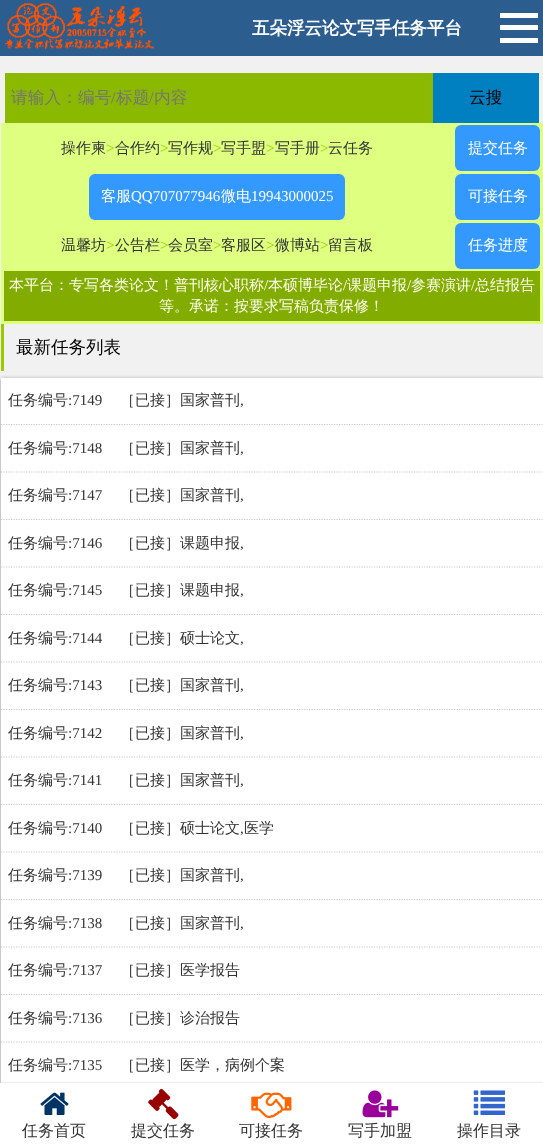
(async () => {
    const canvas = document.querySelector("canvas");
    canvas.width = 543;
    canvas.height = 1145;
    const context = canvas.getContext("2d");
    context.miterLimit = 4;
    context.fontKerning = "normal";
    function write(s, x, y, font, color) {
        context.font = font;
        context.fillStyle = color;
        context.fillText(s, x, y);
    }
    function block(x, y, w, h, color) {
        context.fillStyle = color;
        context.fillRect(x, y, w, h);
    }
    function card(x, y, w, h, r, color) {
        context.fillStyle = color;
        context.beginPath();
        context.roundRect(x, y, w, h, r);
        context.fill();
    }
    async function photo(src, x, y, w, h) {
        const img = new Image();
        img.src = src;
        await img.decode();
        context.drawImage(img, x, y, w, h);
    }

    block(0, 0, 543, 1145, "rgb(241, 241, 241)");
    block(0, 0, 543, 56, "rgb(44, 93, 143)");
    await photo("media/1.png", 5, 3, 149, 47);
    write("五朵浮云论文写手任务平台", 252, 34, "bold 17.5px WenQuanYi Zen Hei", "rgb(255, 255, 255)");
    block(500, 25, 38, 5, "rgb(254, 254, 254)");
    block(500, 13, 38, 5, "rgb(254, 254, 254)");
    block(500, 38, 38, 5, "rgb(254, 254, 254)");
    block(5, 73, 428, 50, "rgb(139, 185, 0)");
    write("请输入：编号", 11, 103, "500 16.75px WenQuanYi Zen Hei", "rgb(117, 117, 117)");
    write("/", 111, 103, "16.75px Liberation Serif", "rgb(117, 117, 117)");
    write("标题", 116, 103, "500 16.75px WenQuanYi Zen Hei", "rgb(117, 117, 117)");
    write("/", 149, 103, "16.75px Liberation Serif", "rgb(117, 117, 117)");
    write("内容", 154, 103, "500 16.75px WenQuanYi Zen Hei", "rgb(117, 117, 117)");
    block(433, 73, 106, 50, "rgb(0, 128, 192)");
    write("云搜", 469, 103, "500 16.75px WenQuanYi Zen Hei", "rgb(0, 0, 0)");
    block(1, 123, 542, 201, "rgb(223, 255, 128)");
    write("操作柬", 61, 153, "500 15px WenQuanYi Zen Hei", "rgb(51, 51, 51)");
    write(">", 106, 153, "15px Liberation Serif", "rgb(153, 204, 0)");
    write("合作约", 115, 153, "500 15px WenQuanYi Zen Hei", "rgb(51, 51, 51)");
    write(">", 160, 153, "15px Liberation Serif", "rgb(153, 204, 0)");
    write("写作规", 168, 153, "500 15px WenQuanYi Zen Hei", "rgb(51, 51, 51)");
    write(">", 213, 153, "15px Liberation Serif", "rgb(153, 204, 0)");
    write("写手盟", 221, 153, "500 15px WenQuanYi Zen Hei", "rgb(51, 51, 51)");
    write(">", 266, 153, "15px Liberation Serif", "rgb(153, 204, 0)");
    write("写手册", 275, 153, "500 15px WenQuanYi Zen Hei", "rgb(51, 51, 51)");
    write(">", 320, 153, "15px Liberation Serif", "rgb(153, 204, 0)");
    write("云任务", 328, 153, "500 15px WenQuanYi Zen Hei", "rgb(51, 51, 51)");
    card(455, 125, 85, 46, 6, "rgb(51, 153, 255)");
    write("提交任务", 468, 153, "500 15px WenQuanYi Zen Hei", "rgb(255, 255, 255)");
    card(89, 174, 256, 46, 6, "rgb(51, 153, 255)");
    write("客服", 101, 201, "500 15px WenQuanYi Zen Hei", "rgb(255, 255, 255)");
    write("QQ707077946", 131, 201, "15px Liberation Serif", "rgb(255, 255, 255)");
    write("微电", 221, 201, "500 15px WenQuanYi Zen Hei", "rgb(255, 255, 255)");
    write("19943000025", 251, 201, "15px Liberation Serif", "rgb(255, 255, 255)");
    card(455, 174, 85, 46, 6, "rgb(51, 153, 255)");
    write("可接任务", 468, 201, "500 15px WenQuanYi Zen Hei", "rgb(255, 255, 255)");
    write("温馨坊", 61, 250, "500 15px WenQuanYi Zen Hei", "rgb(51, 51, 51)");
    write(">", 106, 250, "15px Liberation Serif", "rgb(153, 204, 0)");
    write("公告栏", 115, 250, "500 15px WenQuanYi Zen Hei", "rgb(51, 51, 51)");
    write(">", 160, 250, "15px Liberation Serif", "rgb(153, 204, 0)");
    write("会员室", 168, 250, "500 15px WenQuanYi Zen Hei", "rgb(51, 51, 51)");
    write(">", 213, 250, "15px Liberation Serif", "rgb(153, 204, 0)");
    write("客服区", 221, 250, "500 15px WenQuanYi Zen Hei", "rgb(51, 51, 51)");
    write(">", 266, 250, "15px Liberation Serif", "rgb(153, 204, 0)");
    write("微博站", 275, 250, "500 15px WenQuanYi Zen Hei", "rgb(51, 51, 51)");
    write(">", 320, 250, "15px Liberation Serif", "rgb(153, 204, 0)");
    write("留言板", 328, 250, "500 15px WenQuanYi Zen Hei", "rgb(51, 51, 51)");
    card(455, 223, 85, 46, 6, "rgb(51, 153, 255)");
    write("任务进度", 468, 250, "500 15px WenQuanYi Zen Hei", "rgb(255, 255, 255)");
    block(4, 271, 536, 50, "rgb(130, 172, 0)");
    write("本平台：专写各类论文！普刊核心职称", 9, 290, "500 15px WenQuanYi Zen Hei", "rgb(253, 255, 238)");
    write("/", 264, 290, "15px Liberation Serif", "rgb(253, 255, 238)");
    write("本硕博毕论", 268, 290, "500 15px WenQuanYi Zen Hei", "rgb(253, 255, 238)");
    write("/", 343, 290, "15px Liberation Serif", "rgb(253, 255, 238)");
    write("课题申报", 347, 290, "500 15px WenQuanYi Zen Hei", "rgb(253, 255, 238)");
    write("/", 407, 290, "15px Liberation Serif", "rgb(253, 255, 238)");
    write("参赛演讲", 411, 290, "500 15px WenQuanYi Zen Hei", "rgb(253, 255, 238)");
    write("/", 471, 290, "15px Liberation Serif", "rgb(253, 255, 238)");
    write("总结报告", 475, 290, "500 15px WenQuanYi Zen Hei", "rgb(253, 255, 238)");
    write("等。承诺：按要求写稿负责保修！", 159, 311, "500 15px WenQuanYi Zen Hei", "rgb(253, 255, 238)");
    block(1, 324, 3, 47, "rgb(153, 204, 0)");
    write("最新任务列表", 16, 353, "500 17.5px WenQuanYi Zen Hei", "rgb(0, 0, 0)");
    context.fillStyle = "rgba(0, 0, 0, 0.4)";
    context.filter = "blur(2px)";
    context.beginPath();
    context.rect(1, 379, 542, 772);
    context.fill();
    context.filter = "none";
    block(1, 378, 542, 705, "rgb(255, 255, 255)");
    context.beginPath();
    context.moveTo(1, 424.5);
    context.lineTo(114, 424.5);
    context.strokeStyle = "rgb(204, 204, 204)";
    context.lineWidth = 1.2;
    context.setLineDash([1.25, 1.25]);
    context.stroke();
    write("任务编号", 8, 405, "500 15px WenQuanYi Zen Hei", "rgb(51, 51, 51)");
    write(":7149", 68, 405, "15px Liberation Serif", "rgb(51, 51, 51)");
    context.beginPath();
    context.moveTo(114, 424.5);
    context.lineTo(542.5, 424.5);
    context.stroke();
    write("［已接］国家普刊", 120, 405, "500 15px WenQuanYi Zen Hei", "rgb(51, 51, 51)");
    write(",", 240, 405, "15px Liberation Serif", "rgb(51, 51, 51)");
    context.beginPath();
    context.moveTo(1, 472);
    context.lineTo(114, 472);
    context.stroke();
    write("任务编号", 8, 453, "500 15px WenQuanYi Zen Hei", "rgb(51, 51, 51)");
    write(":7148", 68, 453, "15px Liberation Serif", "rgb(51, 51, 51)");
    context.beginPath();
    context.moveTo(114, 472);
    context.lineTo(542.5, 472);
    context.stroke();
    write("［已接］国家普刊", 120, 453, "500 15px WenQuanYi Zen Hei", "rgb(51, 51, 51)");
    write(",", 240, 453, "15px Liberation Serif", "rgb(51, 51, 51)");
    context.beginPath();
    context.moveTo(1, 519.5);
    context.lineTo(114, 519.5);
    context.stroke();
    write("任务编号", 8, 500, "500 15px WenQuanYi Zen Hei", "rgb(51, 51, 51)");
    write(":7147", 68, 500, "15px Liberation Serif", "rgb(51, 51, 51)");
    context.beginPath();
    context.moveTo(114, 519.5);
    context.lineTo(542.5, 519.5);
    context.stroke();
    write("［已接］国家普刊", 120, 500, "500 15px WenQuanYi Zen Hei", "rgb(51, 51, 51)");
    write(",", 240, 500, "15px Liberation Serif", "rgb(51, 51, 51)");
    context.beginPath();
    context.moveTo(1, 567);
    context.lineTo(114, 567);
    context.stroke();
    write("任务编号", 8, 548, "500 15px WenQuanYi Zen Hei", "rgb(51, 51, 51)");
    write(":7146", 68, 548, "15px Liberation Serif", "rgb(51, 51, 51)");
    context.beginPath();
    context.moveTo(114, 567);
    context.lineTo(542.5, 567);
    context.stroke();
    write("［已接］课题申报", 120, 548, "500 15px WenQuanYi Zen Hei", "rgb(51, 51, 51)");
    write(",", 240, 548, "15px Liberation Serif", "rgb(51, 51, 51)");
    context.beginPath();
    context.moveTo(1, 614.5);
    context.lineTo(114, 614.5);
    context.stroke();
    write("任务编号", 8, 595, "500 15px WenQuanYi Zen Hei", "rgb(51, 51, 51)");
    write(":7145", 68, 595, "15px Liberation Serif", "rgb(51, 51, 51)");
    context.beginPath();
    context.moveTo(114, 614.5);
    context.lineTo(542.5, 614.5);
    context.stroke();
    write("［已接］课题申报", 120, 595, "500 15px WenQuanYi Zen Hei", "rgb(51, 51, 51)");
    write(",", 240, 595, "15px Liberation Serif", "rgb(51, 51, 51)");
    context.beginPath();
    context.moveTo(1, 662);
    context.lineTo(114, 662);
    context.stroke();
    write("任务编号", 8, 643, "500 15px WenQuanYi Zen Hei", "rgb(51, 51, 51)");
    write(":7144", 68, 643, "15px Liberation Serif", "rgb(51, 51, 51)");
    context.beginPath();
    context.moveTo(114, 662);
    context.lineTo(542.5, 662);
    context.stroke();
    write("［已接］硕士论文", 120, 643, "500 15px WenQuanYi Zen Hei", "rgb(51, 51, 51)");
    write(",", 240, 643, "15px Liberation Serif", "rgb(51, 51, 51)");
    context.beginPath();
    context.moveTo(1, 709.5);
    context.lineTo(114, 709.5);
    context.stroke();
    write("任务编号", 8, 690, "500 15px WenQuanYi Zen Hei", "rgb(51, 51, 51)");
    write(":7143", 68, 690, "15px Liberation Serif", "rgb(51, 51, 51)");
    context.beginPath();
    context.moveTo(114, 709.5);
    context.lineTo(542.5, 709.5);
    context.stroke();
    write("［已接］国家普刊", 120, 690, "500 15px WenQuanYi Zen Hei", "rgb(51, 51, 51)");
    write(",", 240, 690, "15px Liberation Serif", "rgb(51, 51, 51)");
    context.beginPath();
    context.moveTo(1, 757);
    context.lineTo(114, 757);
    context.stroke();
    write("任务编号", 8, 738, "500 15px WenQuanYi Zen Hei", "rgb(51, 51, 51)");
    write(":7142", 68, 738, "15px Liberation Serif", "rgb(51, 51, 51)");
    context.beginPath();
    context.moveTo(114, 757);
    context.lineTo(542.5, 757);
    context.stroke();
    write("［已接］国家普刊", 120, 738, "500 15px WenQuanYi Zen Hei", "rgb(51, 51, 51)");
    write(",", 240, 738, "15px Liberation Serif", "rgb(51, 51, 51)");
    context.beginPath();
    context.moveTo(1, 804.5);
    context.lineTo(114, 804.5);
    context.stroke();
    write("任务编号", 8, 785, "500 15px WenQuanYi Zen Hei", "rgb(51, 51, 51)");
    write(":7141", 68, 785, "15px Liberation Serif", "rgb(51, 51, 51)");
    context.beginPath();
    context.moveTo(114, 804.5);
    context.lineTo(542.5, 804.5);
    context.stroke();
    write("［已接］国家普刊", 120, 785, "500 15px WenQuanYi Zen Hei", "rgb(51, 51, 51)");
    write(",", 240, 785, "15px Liberation Serif", "rgb(51, 51, 51)");
    context.beginPath();
    context.moveTo(1, 852);
    context.lineTo(114, 852);
    context.stroke();
    write("任务编号", 8, 833, "500 15px WenQuanYi Zen Hei", "rgb(51, 51, 51)");
    write(":7140", 68, 833, "15px Liberation Serif", "rgb(51, 51, 51)");
    context.beginPath();
    context.moveTo(114, 852);
    context.lineTo(542.5, 852);
    context.stroke();
    write("［已接］硕士论文", 120, 833, "500 15px WenQuanYi Zen Hei", "rgb(51, 51, 51)");
    write(",", 240, 833, "15px Liberation Serif", "rgb(51, 51, 51)");
    write("医学", 244, 833, "500 15px WenQuanYi Zen Hei", "rgb(51, 51, 51)");
    context.beginPath();
    context.moveTo(1, 899.5);
    context.lineTo(114, 899.5);
    context.stroke();
    write("任务编号", 8, 880, "500 15px WenQuanYi Zen Hei", "rgb(51, 51, 51)");
    write(":7139", 68, 880, "15px Liberation Serif", "rgb(51, 51, 51)");
    context.beginPath();
    context.moveTo(114, 899.5);
    context.lineTo(542.5, 899.5);
    context.stroke();
    write("［已接］国家普刊", 120, 880, "500 15px WenQuanYi Zen Hei", "rgb(51, 51, 51)");
    write(",", 240, 880, "15px Liberation Serif", "rgb(51, 51, 51)");
    context.beginPath();
    context.moveTo(1, 947);
    context.lineTo(114, 947);
    context.stroke();
    write("任务编号", 8, 928, "500 15px WenQuanYi Zen Hei", "rgb(51, 51, 51)");
    write(":7138", 68, 928, "15px Liberation Serif", "rgb(51, 51, 51)");
    context.beginPath();
    context.moveTo(114, 947);
    context.lineTo(542.5, 947);
    context.stroke();
    write("［已接］国家普刊", 120, 928, "500 15px WenQuanYi Zen Hei", "rgb(51, 51, 51)");
    write(",", 240, 928, "15px Liberation Serif", "rgb(51, 51, 51)");
    context.beginPath();
    context.moveTo(1, 994.5);
    context.lineTo(114, 994.5);
    context.stroke();
    write("任务编号", 8, 975, "500 15px WenQuanYi Zen Hei", "rgb(51, 51, 51)");
    write(":7137", 68, 975, "15px Liberation Serif", "rgb(51, 51, 51)");
    context.beginPath();
    context.moveTo(114, 994.5);
    context.lineTo(542.5, 994.5);
    context.stroke();
    write("［已接］医学报告", 120, 975, "500 15px WenQuanYi Zen Hei", "rgb(51, 51, 51)");
    context.beginPath();
    context.moveTo(1, 1042);
    context.lineTo(114, 1042);
    context.stroke();
    write("任务编号", 8, 1023, "500 15px WenQuanYi Zen Hei", "rgb(51, 51, 51)");
    write(":7136", 68, 1023, "15px Liberation Serif", "rgb(51, 51, 51)");
    context.beginPath();
    context.moveTo(114, 1042);
    context.lineTo(542.5, 1042);
    context.stroke();
    write("［已接］诊治报告", 120, 1023, "500 15px WenQuanYi Zen Hei", "rgb(51, 51, 51)");
    write("任务编号", 8, 1070, "500 15px WenQuanYi Zen Hei", "rgb(51, 51, 51)");
    write(":7135", 68, 1070, "15px Liberation Serif", "rgb(51, 51, 51)");
    write("［已接］医学，病例个案", 120, 1070, "500 15px WenQuanYi Zen Hei", "rgb(51, 51, 51)");
    context.fillStyle = "rgb(204, 204, 204)";
    context.filter = "blur(1px)";
    context.beginPath();
    context.rect(0, 1083, 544, 62);
    context.fill();
    context.filter = "none";
    block(0, 1083, 543, 62, "rgb(255, 255, 255)");
    await photo("media/2.png", 40, 1092, 29, 23);
    write("任务首页", 22, 1136, "500 16px WenQuanYi Zen Hei", "rgb(51, 51, 51)");
    await photo("media/3.png", 148, 1088, 31, 32);
    write("提交任务", 131, 1136, "500 16px WenQuanYi Zen Hei", "rgb(51, 51, 51)");
    await photo("media/4.png", 251, 1092, 41, 26);
    write("可接任务", 239, 1136, "500 16px WenQuanYi Zen Hei", "rgb(51, 51, 51)");
    await photo("media/5.png", 362, 1090, 37, 28);
    write("写手加盟", 348, 1136, "500 16px WenQuanYi Zen Hei", "rgb(51, 51, 51)");
    await photo("media/6.png", 473, 1090, 32, 25);
    write("操作目录", 457, 1136, "500 16px WenQuanYi Zen Hei", "rgb(51, 51, 51)");
})();
